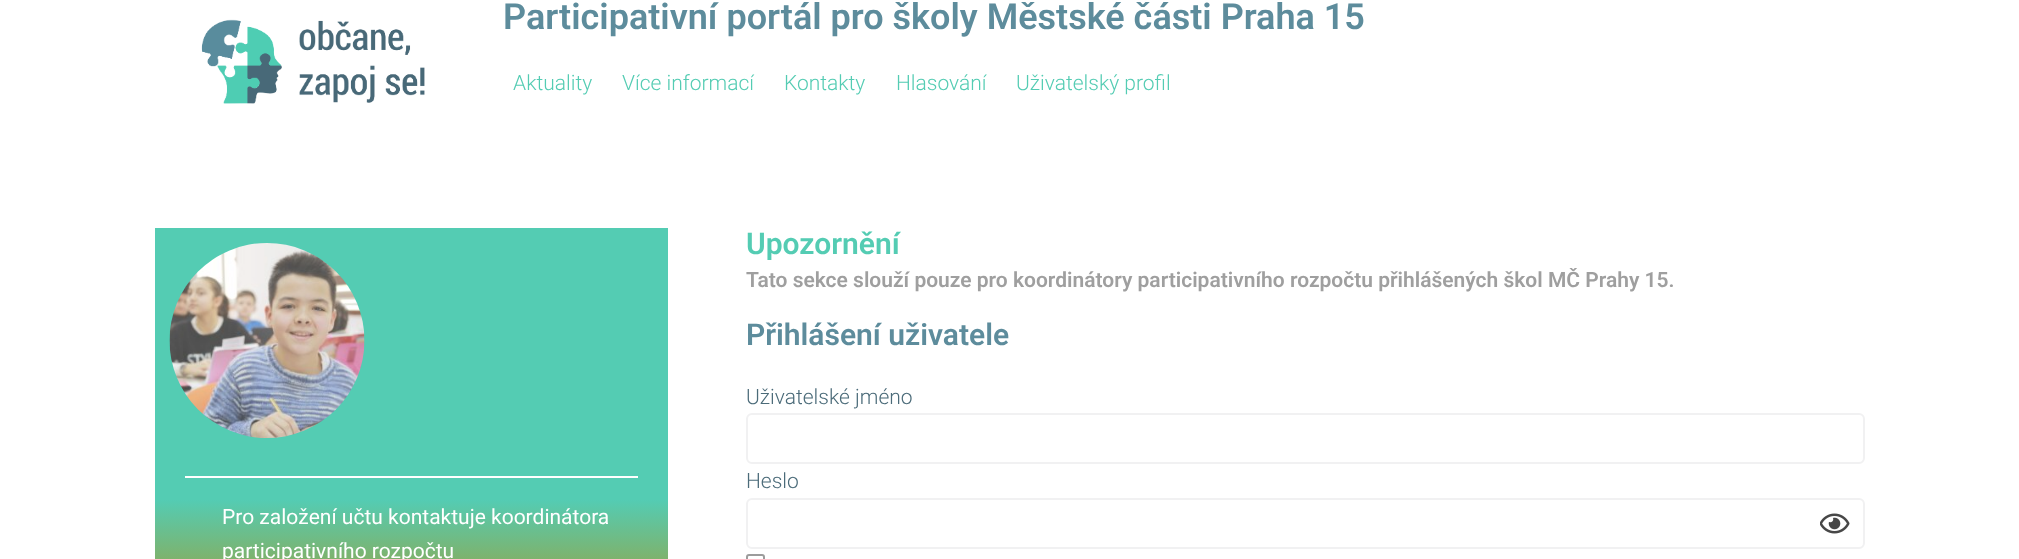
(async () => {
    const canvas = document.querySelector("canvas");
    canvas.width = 2019;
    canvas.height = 559;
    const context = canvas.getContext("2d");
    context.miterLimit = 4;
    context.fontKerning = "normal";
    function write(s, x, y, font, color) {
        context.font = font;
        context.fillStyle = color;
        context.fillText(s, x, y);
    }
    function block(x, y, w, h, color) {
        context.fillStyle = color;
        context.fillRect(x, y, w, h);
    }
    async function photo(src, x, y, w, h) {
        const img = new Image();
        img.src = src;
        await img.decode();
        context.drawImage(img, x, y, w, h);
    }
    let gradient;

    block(0, 0, 2019, 559, "rgb(255, 255, 255)");
    await photo("media/1.png", 201, 19, 224, 85);
    write("Participativní portál pro školy Městské části Praha 15", 503, 29, "600 36px Roboto", "rgb(93, 140, 156)");
    write("Aktuality", 513, 90, "300 21px Roboto", "rgb(84, 204, 179)");
    write("Více informací", 622, 90, "300 21px Roboto", "rgb(84, 204, 179)");
    write("Kontakty", 784, 90, "300 21px Roboto", "rgb(84, 204, 179)");
    write("Hlasování", 896, 90, "300 21px Roboto", "rgb(84, 204, 179)");
    write("Uživatelský profil", 1016, 90, "300 21px Roboto", "rgb(84, 204, 179)");
    write("Upozornění", 746, 254, "600 30px Roboto", "rgb(84, 204, 179)");
    write("Tato sekce slouží pouze pro koordinátory participativního rozpočtu přihlášených škol MČ Prahy 15.", 746, 287, "600 21px Roboto", "rgb(159, 159, 159)");
    write("Přihlášení uživatele", 746, 345, "600 30px Roboto", "rgb(93, 140, 156)");
    write("Uživatelské jméno", 746, 404, "300 21px Roboto", "rgb(75, 107, 121)");
    context.beginPath();
    context.roundRect(747, 414, 1117, 49, 5);
    context.strokeStyle = "rgb(241, 241, 242)";
    context.lineWidth = 2;
    context.stroke();
    write("Heslo", 746, 488, "300 21px Roboto", "rgb(75, 107, 121)");
    context.beginPath();
    context.roundRect(747, 499, 1117, 49, 5);
    context.stroke();
    await photo("media/2.png", 1820, 513, 30, 21);
    context.beginPath();
    context.roundRect(747, 555, 17, 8, 2);
    context.strokeStyle = "rgb(156, 156, 156)";
    context.stroke();
    block(155, 228, 513, 272, "rgb(84, 204, 179)");
    await photo("media/3.png", 169, 243, 196, 195);
    block(185, 476, 453, 2, "rgb(255, 255, 255)");
    gradient = context.createLinearGradient(411, 500, 411, 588);
    gradient.addColorStop(0, "rgb(84, 204, 179)");
    gradient.addColorStop(1, "rgb(146, 166, 75)");
    context.fillStyle = gradient;
    context.fillRect(155, 500, 513, 59);
    write("Pro založení učtu kontaktuje koordinátora", 222, 524, "21px Roboto", "rgb(255, 255, 255)");
    write("participativního rozpočtu", 222, 558, "21px Roboto", "rgb(255, 255, 255)");
})();
